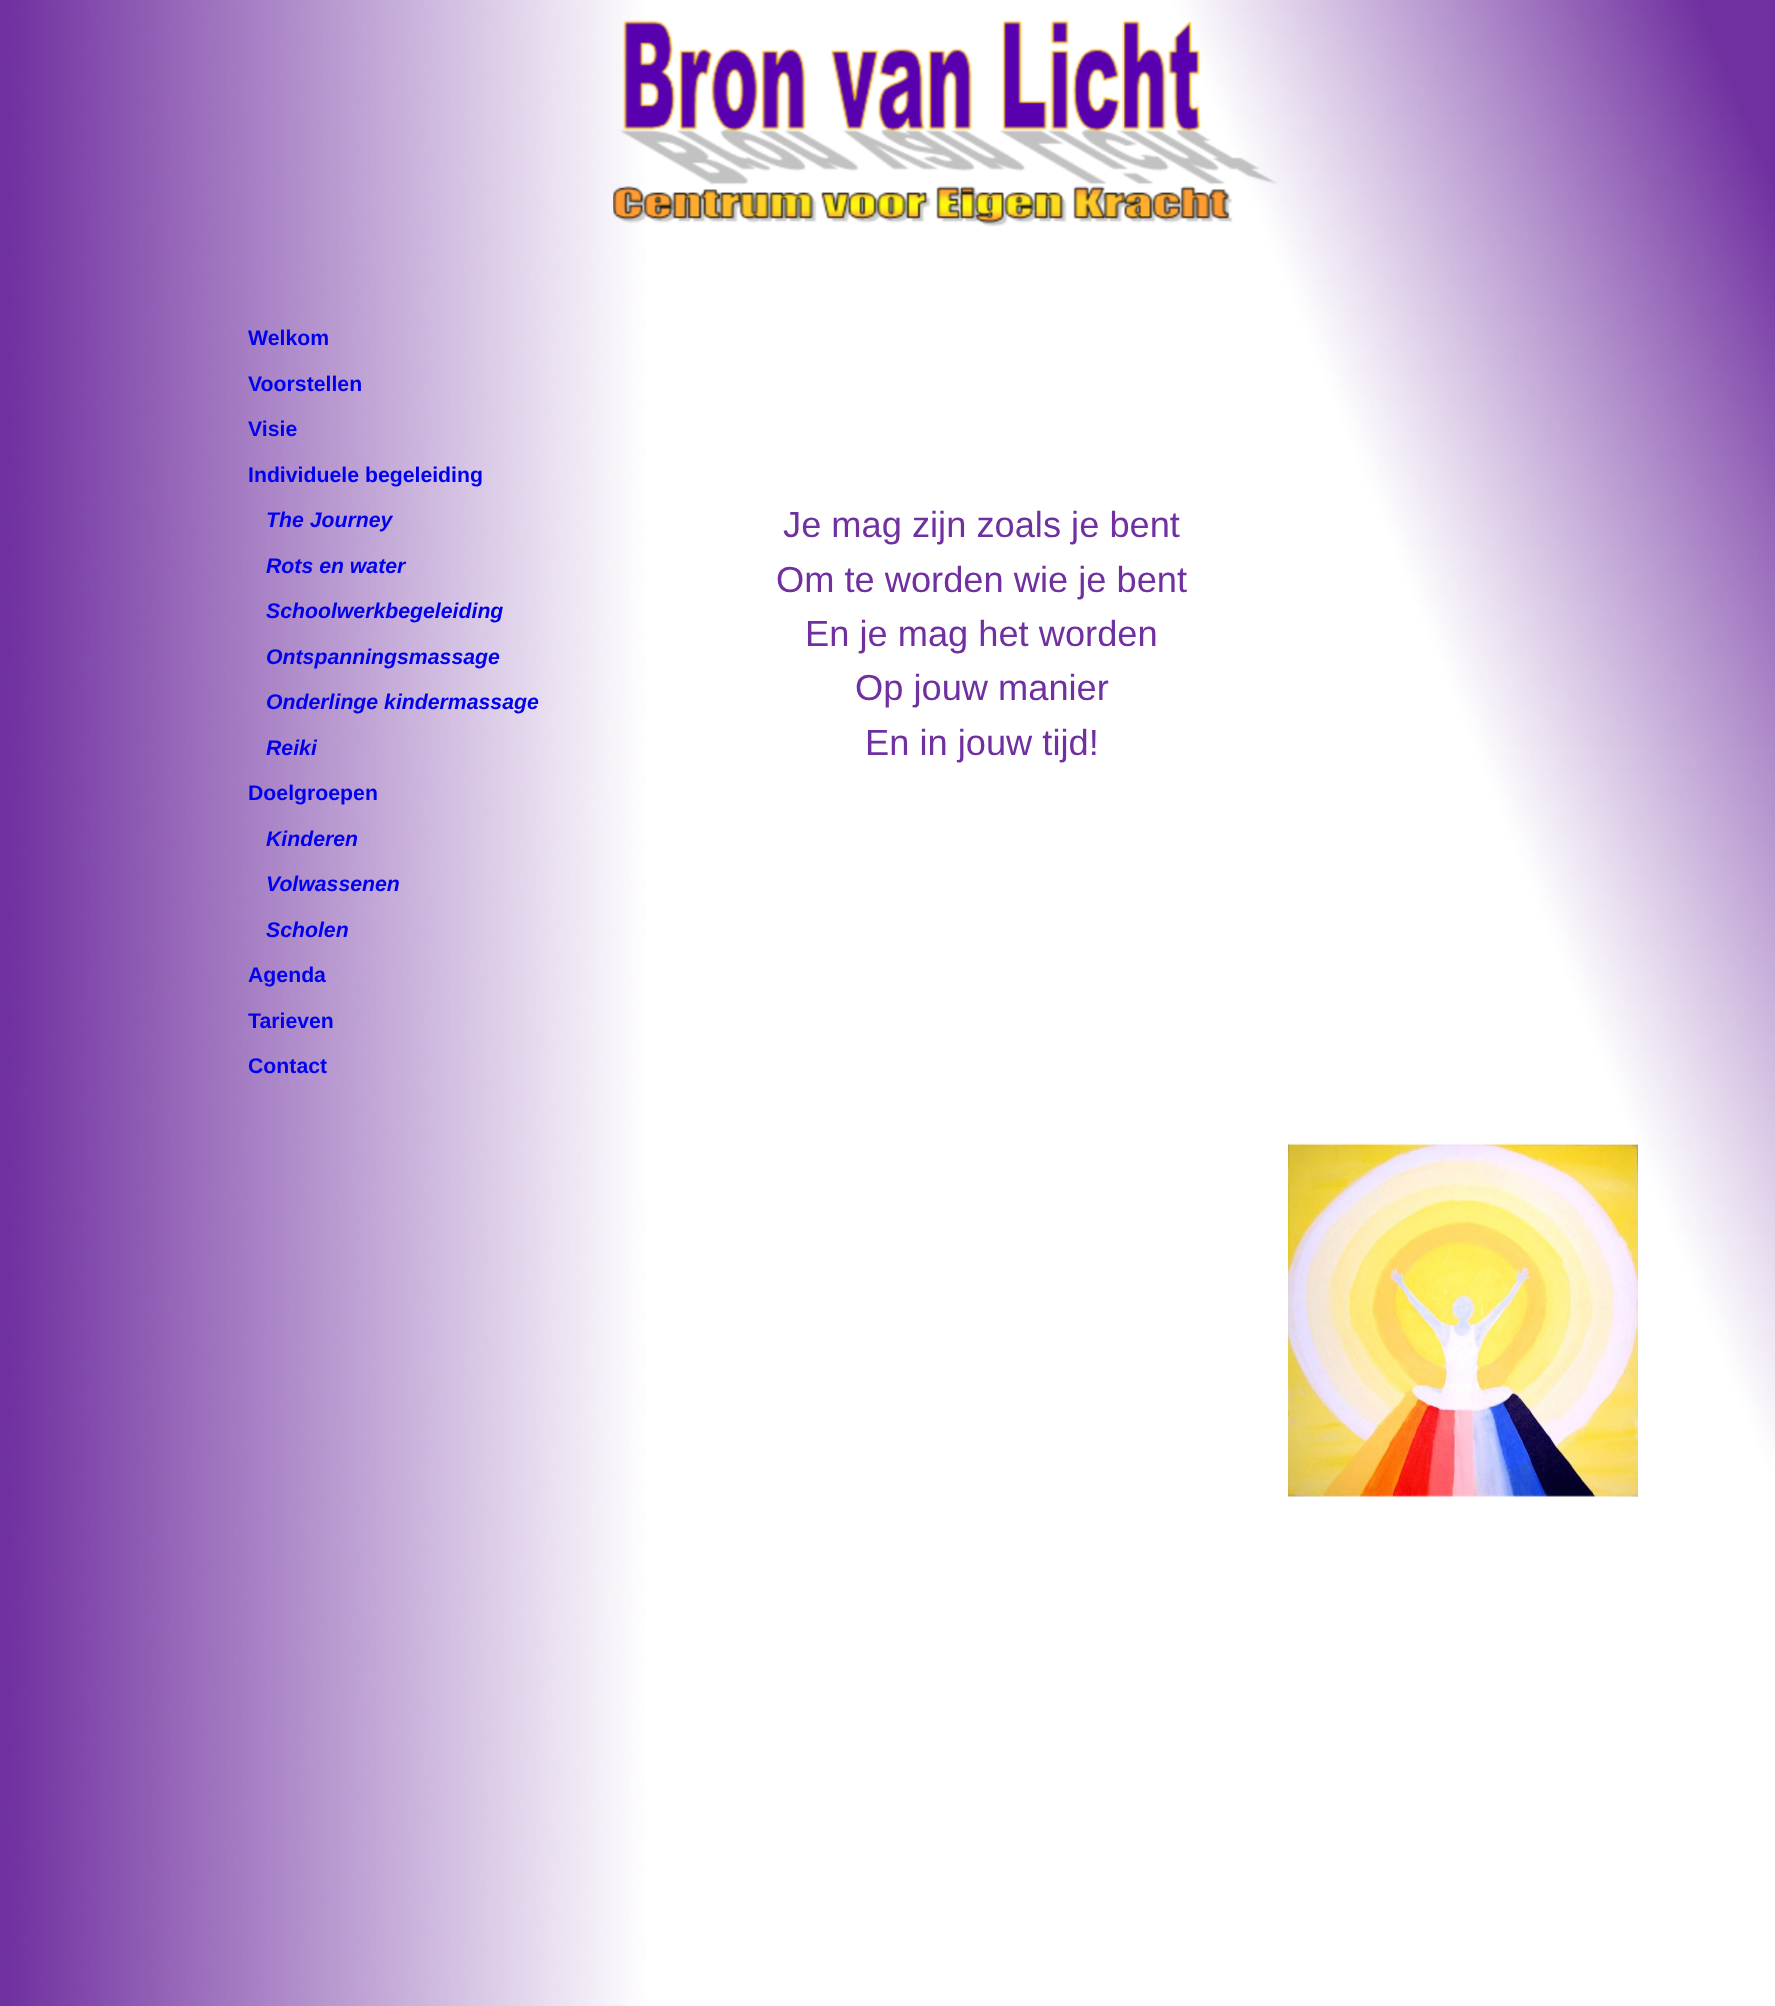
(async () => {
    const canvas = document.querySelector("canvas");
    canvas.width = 1775;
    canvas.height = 2006;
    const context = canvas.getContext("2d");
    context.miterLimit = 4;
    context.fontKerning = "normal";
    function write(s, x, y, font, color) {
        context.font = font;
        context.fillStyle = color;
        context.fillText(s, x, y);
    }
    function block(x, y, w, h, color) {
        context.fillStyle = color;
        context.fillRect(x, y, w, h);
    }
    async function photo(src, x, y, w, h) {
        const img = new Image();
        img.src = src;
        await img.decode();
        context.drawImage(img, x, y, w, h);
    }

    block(0, 0, 1775, 2006, "rgb(255, 255, 255)");
    await photo("media/1.png", 0, 0, 1775, 2006);
    await photo("media/2.png", 613, 20, 664, 207);
    write("Welkom", 248, 345, "bold 21.25px Liberation Sans", "rgb(0, 0, 238)");
    write("Voorstellen", 248, 391, "bold 21.25px Liberation Sans", "rgb(0, 0, 238)");
    write("Visie", 248, 436, "bold 21.25px Liberation Sans", "rgb(0, 0, 238)");
    write("Individuele begeleiding", 248, 482, "bold 21.25px Liberation Sans", "rgb(0, 0, 238)");
    write("The Journey", 266, 527, "italic bold 21.25px Liberation Sans", "rgb(0, 0, 238)");
    write("Rots en water", 266, 573, "italic bold 21.25px Liberation Sans", "rgb(0, 0, 238)");
    write("Schoolwerkbegeleiding", 266, 618, "italic bold 21.25px Liberation Sans", "rgb(0, 0, 238)");
    write("Ontspanningsmassage", 266, 664, "italic bold 21.25px Liberation Sans", "rgb(0, 0, 238)");
    write("Onderlinge kindermassage", 266, 709, "italic bold 21.25px Liberation Sans", "rgb(0, 0, 238)");
    write("Reiki", 266, 755, "italic bold 21.25px Liberation Sans", "rgb(0, 0, 238)");
    write("Doelgroepen", 248, 800, "bold 21.25px Liberation Sans", "rgb(0, 0, 238)");
    write("Kinderen", 266, 846, "italic bold 21.25px Liberation Sans", "rgb(0, 0, 238)");
    write("Volwassenen", 266, 891, "italic bold 21.25px Liberation Sans", "rgb(0, 0, 238)");
    write("Scholen", 266, 937, "italic bold 21.25px Liberation Sans", "rgb(0, 0, 238)");
    write("Agenda", 248, 982, "bold 21.25px Liberation Sans", "rgb(0, 0, 238)");
    write("Tarieven", 248, 1028, "bold 21.25px Liberation Sans", "rgb(0, 0, 238)");
    write("Contact", 248, 1073, "bold 21.25px Liberation Sans", "rgb(0, 0, 238)");
    write("Je mag zijn zoals je bent", 783, 537, "36.25px Liberation Sans", "rgb(112, 48, 160)");
    write("Om te worden wie je bent", 776, 592, "36.25px Liberation Sans", "rgb(112, 48, 160)");
    write("En je mag het worden", 805, 646, "36.25px Liberation Sans", "rgb(112, 48, 160)");
    write("Op jouw manier", 855, 700, "36.25px Liberation Sans", "rgb(112, 48, 160)");
    write("En in jouw tijd!", 865, 755, "36.25px Liberation Sans", "rgb(112, 48, 160)");
    await photo("media/3.png", 1288, 1143, 350, 354);
})();
